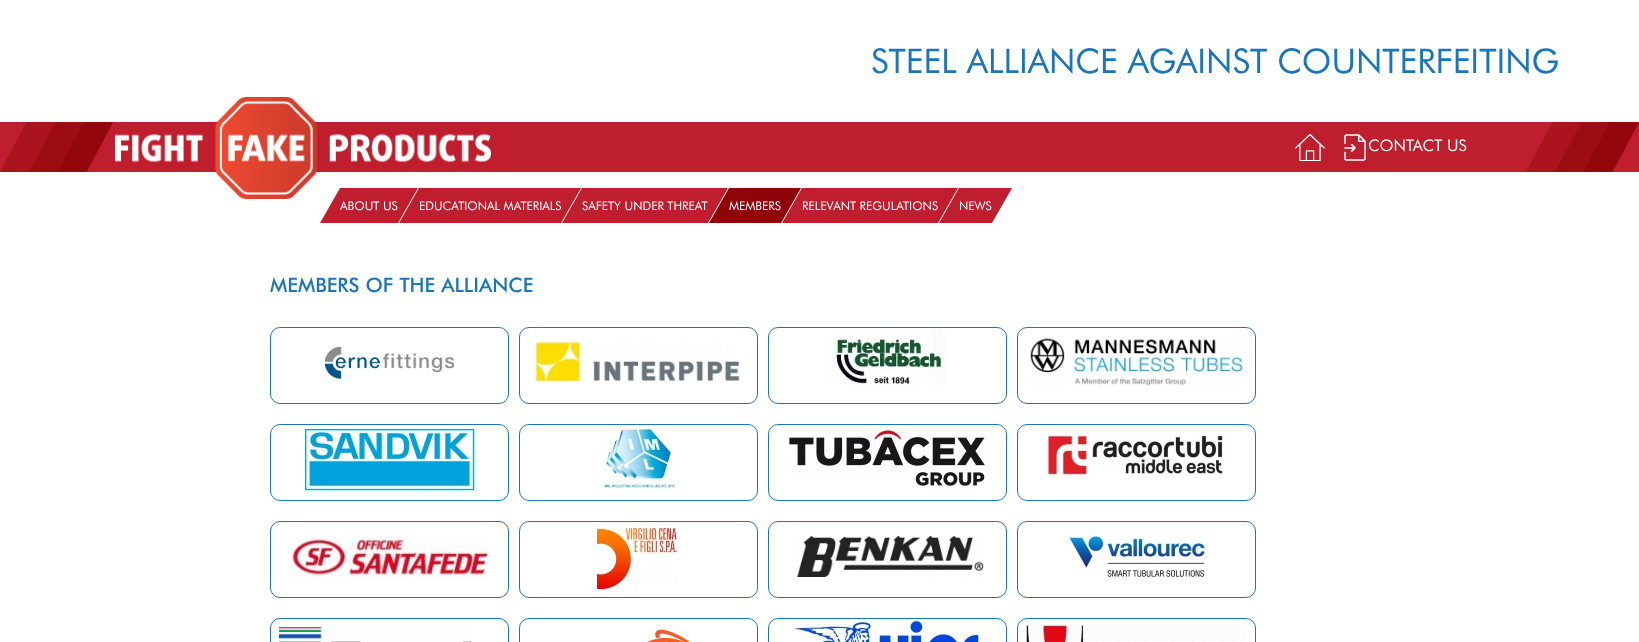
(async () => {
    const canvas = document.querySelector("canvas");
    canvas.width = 1639;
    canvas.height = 642;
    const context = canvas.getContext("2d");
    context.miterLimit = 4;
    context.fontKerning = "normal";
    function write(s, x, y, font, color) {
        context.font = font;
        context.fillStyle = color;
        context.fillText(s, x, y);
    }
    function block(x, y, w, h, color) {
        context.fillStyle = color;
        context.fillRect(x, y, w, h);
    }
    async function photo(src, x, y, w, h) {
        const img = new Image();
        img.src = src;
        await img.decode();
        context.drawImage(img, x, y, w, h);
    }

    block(0, 0, 1639, 642, "rgb(255, 255, 255)");
    write("STEEL ALLIANCE AGAINST COUNTERFEITING", 871, 73, "34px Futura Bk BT", "rgb(27, 117, 187)");
    block(0, 122, 1639, 50, "rgb(190, 30, 45)");
    await photo("media/1.png", 0, 122, 113, 50);
    await photo("media/2.png", 115, 97, 376, 102);
    await photo("media/3.png", 1295, 134, 30, 27);
    await photo("media/4.png", 1344, 134, 22, 27);
    write("CONTACT US", 1368, 151, "16px Futura Bk BT", "rgb(255, 255, 255)");
    await photo("media/1.png", 1526, 122, 113, 50);
    context.fillStyle = "rgb(190, 30, 45)";
    context.beginPath();
    context.moveTo(340, 188);
    context.lineTo(418, 188);
    context.lineTo(398, 223);
    context.lineTo(320, 223);
    context.closePath();
    context.fill();
    write("ABOUT US", 340, 210, "12px Futura Bk BT", "rgb(255, 255, 255)");
    context.fillStyle = "rgb(190, 30, 45)";
    context.beginPath();
    context.moveTo(419, 188);
    context.lineTo(581, 188);
    context.lineTo(561, 223);
    context.lineTo(399, 223);
    context.closePath();
    context.fill();
    write("EDUCATIONAL MATERIALS", 419, 210, "12px Futura Bk BT", "rgb(255, 255, 255)");
    context.fillStyle = "rgb(190, 30, 45)";
    context.beginPath();
    context.moveTo(582, 188);
    context.lineTo(728, 188);
    context.lineTo(708, 223);
    context.lineTo(562, 223);
    context.closePath();
    context.fill();
    write("SAFETY UNDER THREAT", 582, 210, "12px Futura Bk BT", "rgb(255, 255, 255)");
    context.fillStyle = "rgb(142, 4, 8)";
    context.beginPath();
    context.moveTo(729, 188);
    context.lineTo(801, 188);
    context.lineTo(781, 223);
    context.lineTo(709, 223);
    context.closePath();
    context.fill();
    write("MEMBERS", 729, 210, "12px Futura Bk BT", "rgb(255, 255, 255)");
    context.fillStyle = "rgb(190, 30, 45)";
    context.beginPath();
    context.moveTo(802, 188);
    context.lineTo(958, 188);
    context.lineTo(938, 223);
    context.lineTo(782, 223);
    context.closePath();
    context.fill();
    write("RELEVANT REGULATIONS", 802, 210, "12px Futura Bk BT", "rgb(255, 255, 255)");
    context.fillStyle = "rgb(190, 30, 45)";
    context.beginPath();
    context.moveTo(959, 188);
    context.lineTo(1012, 188);
    context.lineTo(992, 223);
    context.lineTo(939, 223);
    context.closePath();
    context.fill();
    write("NEWS", 959, 210, "12px Futura Bk BT", "rgb(255, 255, 255)");
    write("MEMBERS OF THE ALLIANCE", 270, 292, "500 20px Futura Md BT", "rgb(27, 117, 187)");
    context.beginPath();
    context.roundRect(270.5, 327.5, 238, 76, 9.5);
    context.strokeStyle = "rgb(27, 117, 187)";
    context.stroke();
    await photo("media/5.png", 325, 346, 129, 33);
    context.beginPath();
    context.roundRect(519.5, 327.5, 238, 76, 9.5);
    context.stroke();
    await photo("media/6.png", 534, 340, 206, 43);
    context.beginPath();
    context.roundRect(768.5, 327.5, 238, 76, 9.5);
    context.stroke();
    await photo("media/7.png", 830, 330, 116, 55);
    context.beginPath();
    context.roundRect(1017.5, 327.5, 238, 76, 9.5);
    context.stroke();
    await photo("media/8.png", 1030, 338, 214, 48);
    context.beginPath();
    context.roundRect(270.5, 424.5, 238, 76, 9.5);
    context.stroke();
    await photo("media/9.png", 304, 428, 171, 64);
    context.beginPath();
    context.roundRect(519.5, 424.5, 238, 76, 9.5);
    context.stroke();
    await photo("media/10.png", 603, 428, 73, 62);
    context.beginPath();
    context.roundRect(768.5, 424.5, 238, 76, 9.5);
    context.stroke();
    await photo("media/11.png", 789, 429, 196, 57);
    context.beginPath();
    context.roundRect(1017.5, 424.5, 238, 76, 9.5);
    context.stroke();
    await photo("media/12.png", 1047, 434, 176, 42);
    context.beginPath();
    context.roundRect(270.5, 521.5, 238, 76, 9.5);
    context.stroke();
    await photo("media/13.png", 291, 537, 198, 43);
    context.beginPath();
    context.roundRect(519.5, 521.5, 238, 76, 9.5);
    context.stroke();
    await photo("media/14.png", 597, 527, 81, 62);
    context.beginPath();
    context.roundRect(768.5, 521.5, 238, 76, 9.5);
    context.stroke();
    await photo("media/15.png", 797, 535, 187, 43);
    context.beginPath();
    context.roundRect(1017.5, 521.5, 238, 76, 9.5);
    context.stroke();
    await photo("media/16.png", 1068, 535, 138, 42);
    context.beginPath();
    context.roundRect(270.5, 618.5, 238, 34, 9.5);
    context.stroke();
    await photo("media/17.png", 279, 627, 193, 15);
    context.beginPath();
    context.roundRect(519.5, 618.5, 238, 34, 9.5);
    context.stroke();
    await photo("media/18.png", 647, 629, 43, 13);
    context.beginPath();
    context.roundRect(768.5, 618.5, 238, 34, 9.5);
    context.stroke();
    await photo("media/19.png", 794, 621, 186, 21);
    context.beginPath();
    context.roundRect(1017.5, 618.5, 238, 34, 9.5);
    context.stroke();
    await photo("media/20.png", 1026, 624, 220, 18);
})();
